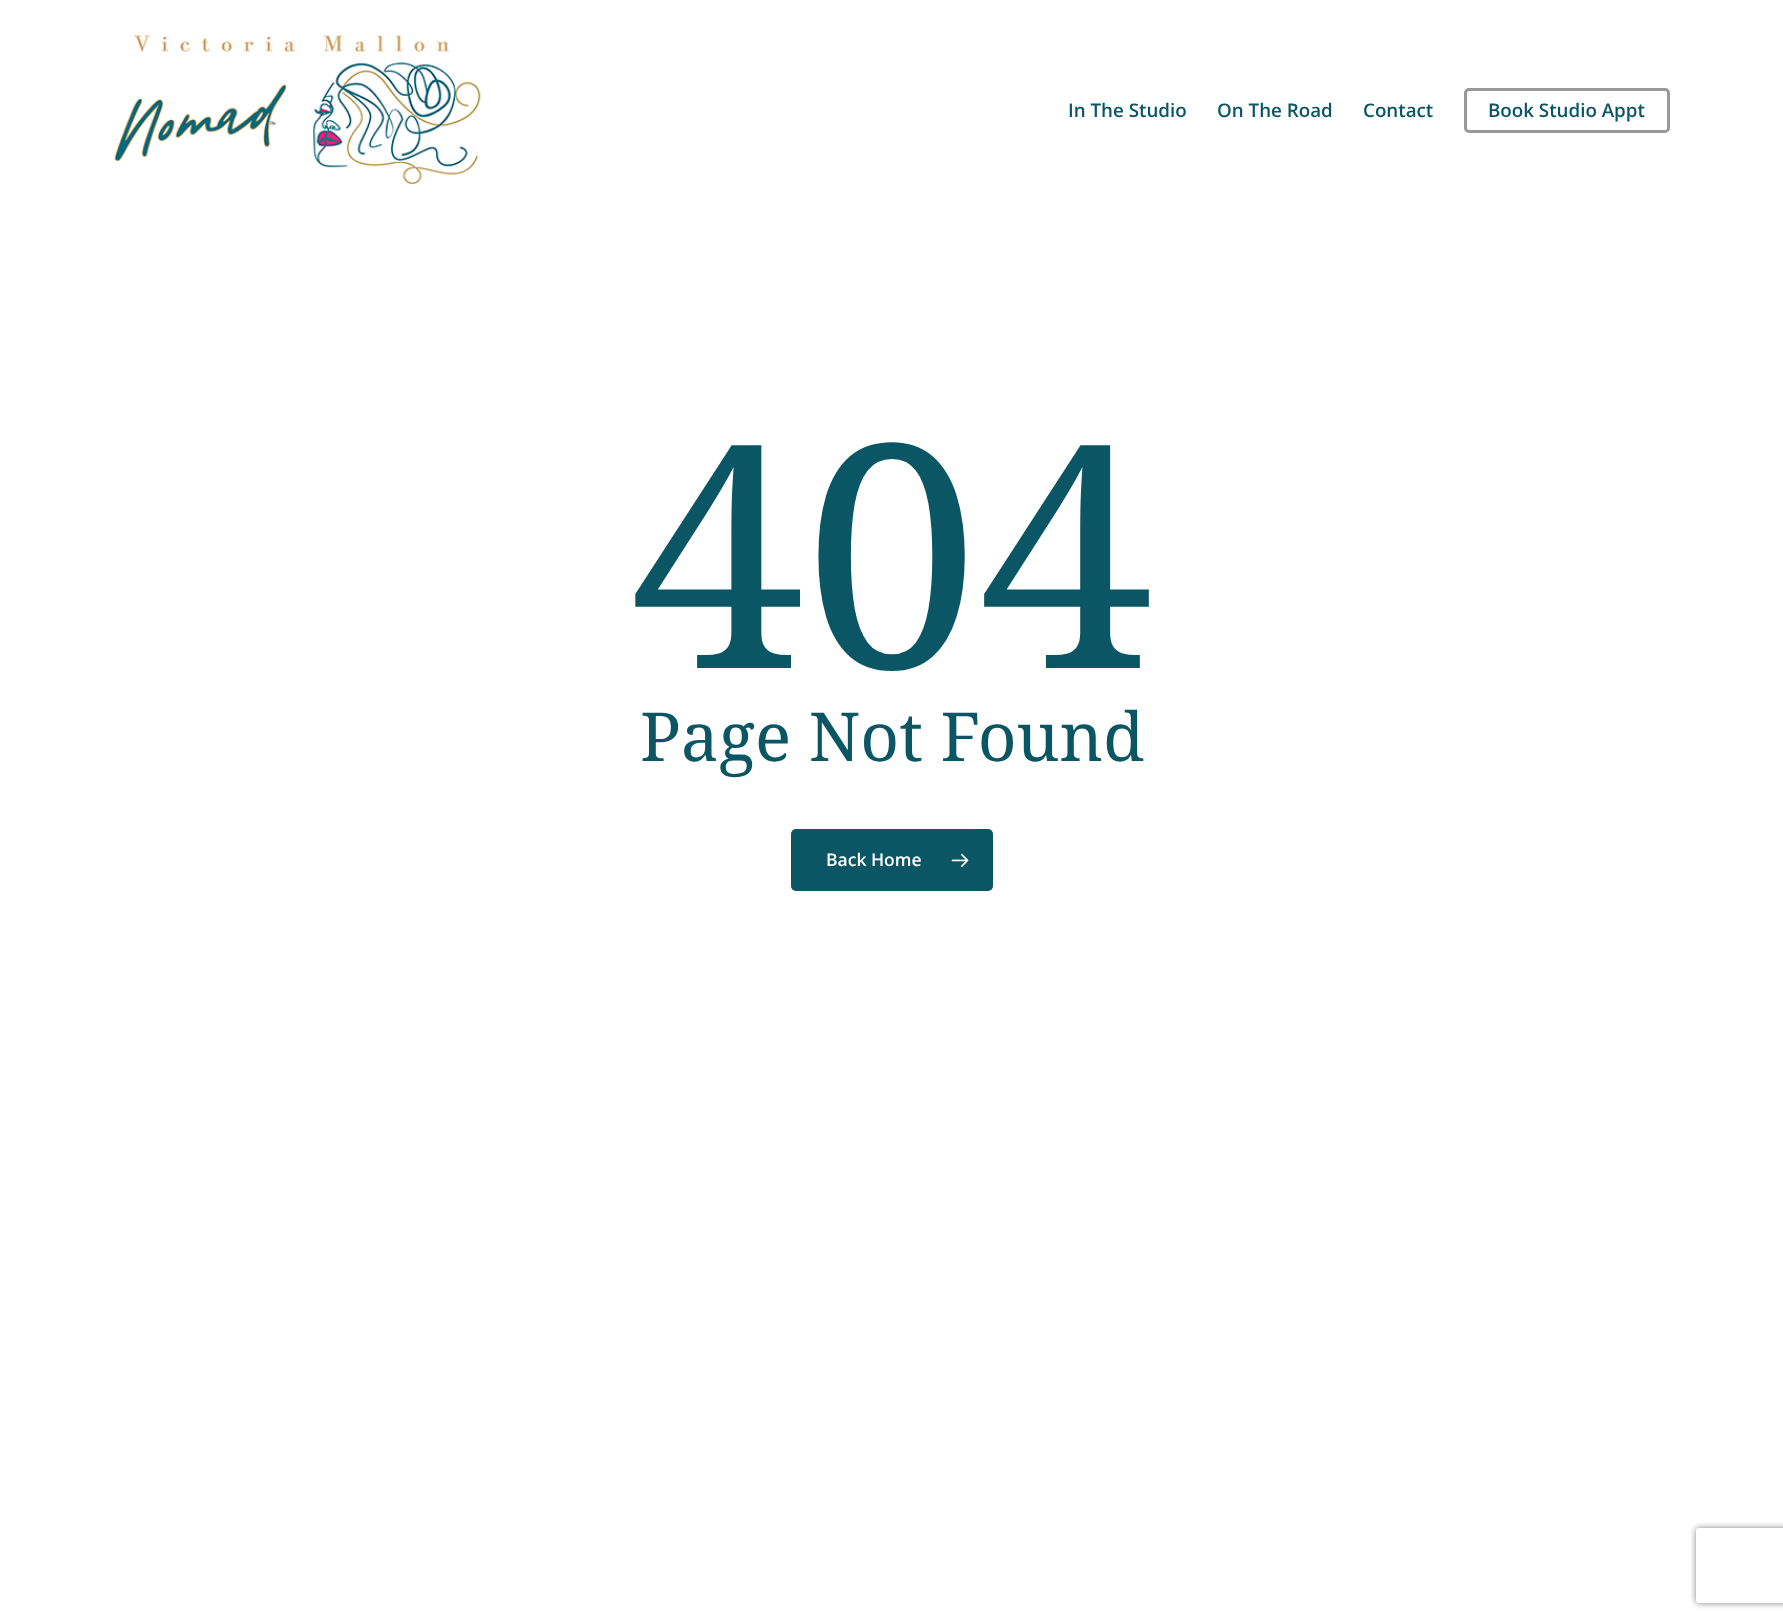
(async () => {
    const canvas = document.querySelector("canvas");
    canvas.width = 1783;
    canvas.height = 1620;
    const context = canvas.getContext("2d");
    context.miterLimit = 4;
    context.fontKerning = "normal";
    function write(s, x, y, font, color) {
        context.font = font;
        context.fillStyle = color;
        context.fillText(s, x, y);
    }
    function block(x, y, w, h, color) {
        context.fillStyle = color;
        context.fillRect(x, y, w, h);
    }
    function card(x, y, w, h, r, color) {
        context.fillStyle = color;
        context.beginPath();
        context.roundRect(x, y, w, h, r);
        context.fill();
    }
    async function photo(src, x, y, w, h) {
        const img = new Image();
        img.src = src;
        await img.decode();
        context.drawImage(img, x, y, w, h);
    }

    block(0, 0, 1783, 1620, "rgb(255, 255, 255)");
    await photo("media/1.png", 113, 35, 368, 149);
    write("In The Studio", 1068, 117, "600 18.75px Open Sans", "rgb(11, 86, 100)");
    write("On The Road", 1217, 117, "600 18.75px Open Sans", "rgb(11, 86, 100)");
    write("Contact", 1363, 117, "600 18.75px Open Sans", "rgb(11, 86, 100)");
    context.beginPath();
    context.roundRect(1465.5, 89.5, 203, 42, 3.5);
    context.strokeStyle = "rgb(153, 153, 153)";
    context.lineWidth = 3;
    context.stroke();
    write("Book Studio Appt", 1488, 117, "600 18.75px Open Sans", "rgb(11, 86, 100)");
    write("404", 630, 668, "312px Noto Serif", "rgb(11, 86, 100)");
    write("Page Not Found", 640, 761, "67.5px Noto Serif", "rgb(11, 86, 100)");
    card(791, 829, 202, 62, 5, "rgb(11, 86, 100)");
    write("Back Home", 826, 866, "600 17.5px Open Sans", "rgb(255, 255, 255)");
    await photo("media/2.png", 951, 853, 18, 14);
    context.save();
    context.beginPath();
    context.moveTo(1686, 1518);
    context.lineTo(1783, 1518);
    context.lineTo(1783, 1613);
    context.lineTo(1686, 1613);
    context.closePath();
    context.moveTo(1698.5, 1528);
    context.lineTo(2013.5, 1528);
    context.bezierCurveTo(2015, 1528, 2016, 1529, 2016, 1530.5);
    context.lineTo(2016, 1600.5);
    context.bezierCurveTo(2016, 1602, 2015, 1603, 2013.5, 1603);
    context.lineTo(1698.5, 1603);
    context.bezierCurveTo(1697, 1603, 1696, 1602, 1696, 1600.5);
    context.lineTo(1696, 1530.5);
    context.bezierCurveTo(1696, 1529, 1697, 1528, 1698.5, 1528);
    context.closePath();
    context.clip("evenodd");
    context.fillStyle = "rgb(128, 128, 128)";
    context.filter = "blur(3px)";
    context.beginPath();
    context.roundRect(1696, 1528, 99, 75, 2.5);
    context.fill();
    context.filter = "none";
    context.restore();
})();
